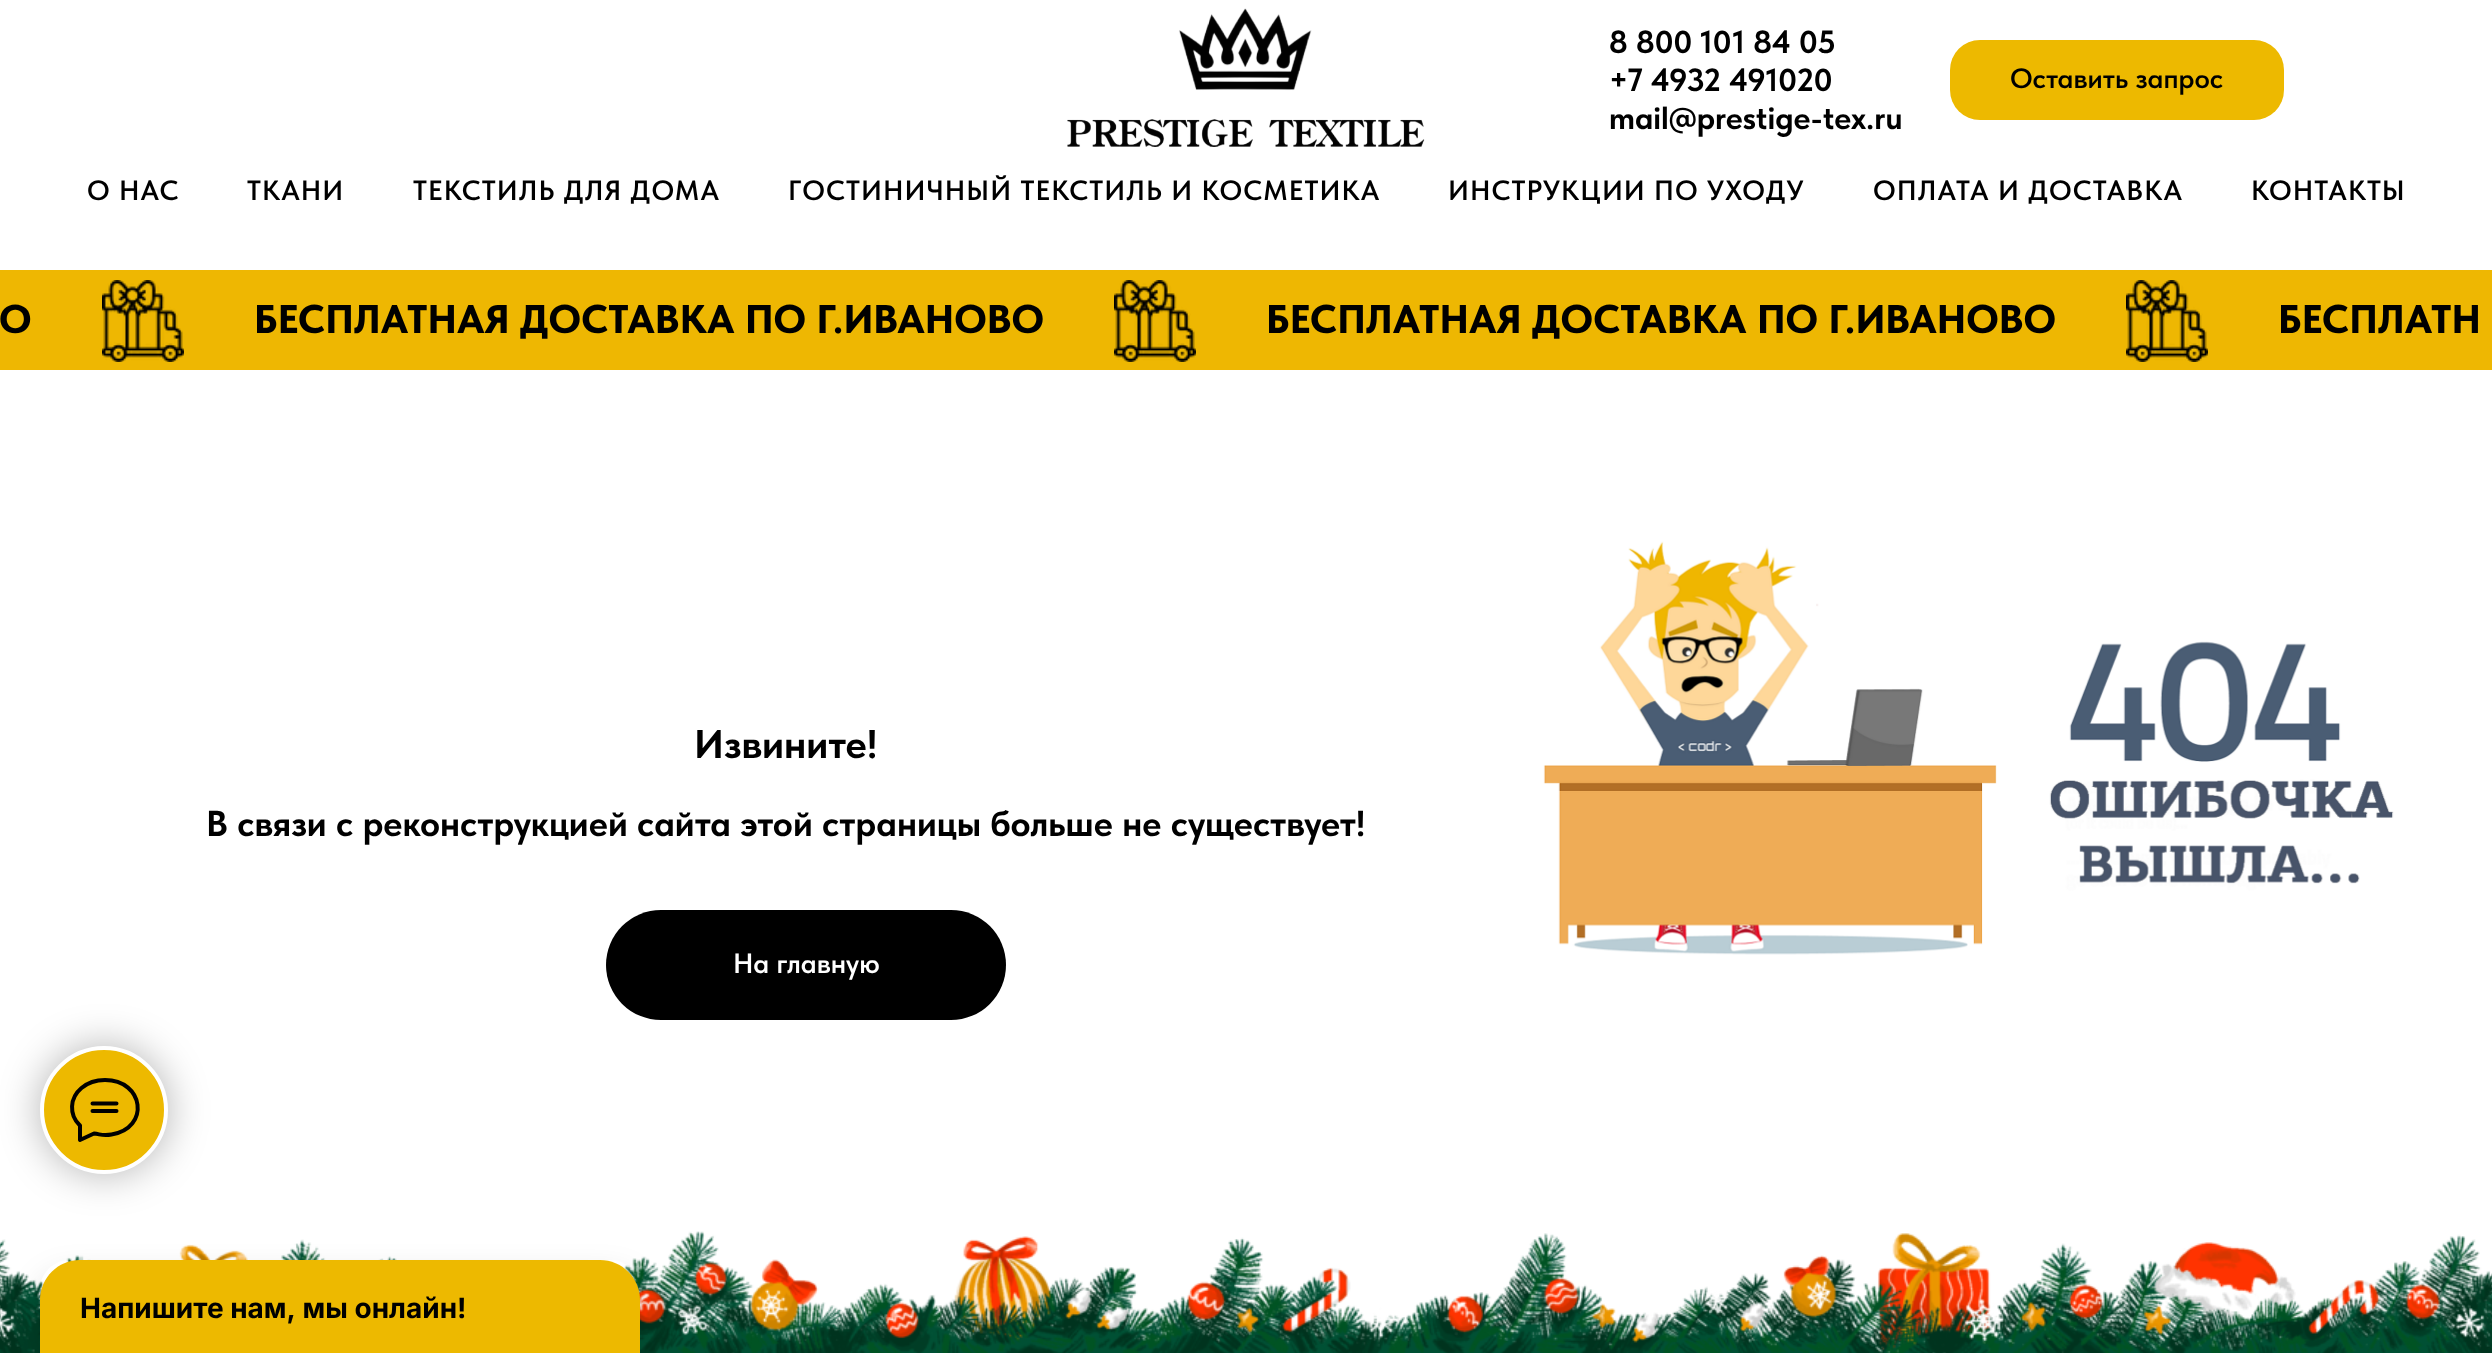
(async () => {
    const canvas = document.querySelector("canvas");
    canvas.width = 2492;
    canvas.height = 1353;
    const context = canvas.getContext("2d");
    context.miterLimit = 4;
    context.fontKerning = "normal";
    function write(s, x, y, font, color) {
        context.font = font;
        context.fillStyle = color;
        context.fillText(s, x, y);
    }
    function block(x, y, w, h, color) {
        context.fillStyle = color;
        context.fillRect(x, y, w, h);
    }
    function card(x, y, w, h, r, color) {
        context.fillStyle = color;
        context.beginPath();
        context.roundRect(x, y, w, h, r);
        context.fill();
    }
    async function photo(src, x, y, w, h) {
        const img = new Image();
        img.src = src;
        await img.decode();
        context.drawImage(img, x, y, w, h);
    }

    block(0, 0, 2492, 1353, "rgb(255, 255, 255)");
    await photo("media/1.png", 1067, 8, 358, 139);
    write("8 800 101 84 05", 1609, 53, "bold 32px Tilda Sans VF", "rgb(0, 0, 0)");
    write("+7 4932 491020", 1609, 91, "bold 32px Tilda Sans VF", "rgb(0, 0, 0)");
    write("mail@prestige-tex.ru", 1609, 129, "bold 32px Tilda Sans VF", "rgb(0, 0, 0)");
    card(1950, 40, 334, 80, 30, "rgb(237, 185, 0)");
    write("Оставить запрос", 2010, 88, "600 28px Tilda Sans VF", "rgb(0, 0, 0)");
    context.letterSpacing = "1px";
    write("О НАС", 87, 200, "600 28px Tilda Sans VF", "rgb(0, 0, 0)");
    write("ТКАНИ", 247, 200, "600 28px Tilda Sans VF", "rgb(0, 0, 0)");
    write("ТЕКСТИЛЬ ДЛЯ ДОМА", 413, 200, "600 28px Tilda Sans VF", "rgb(0, 0, 0)");
    write("ГОСТИНИЧНЫЙ ТЕКСТИЛЬ И КОСМЕТИКА", 788, 200, "600 28px Tilda Sans VF", "rgb(0, 0, 0)");
    write("ИНСТРУКЦИИ ПО УХОДУ", 1448, 200, "600 28px Tilda Sans VF", "rgb(0, 0, 0)");
    write("ОПЛАТА И ДОСТАВКА", 1873, 200, "600 28px Tilda Sans VF", "rgb(0, 0, 0)");
    write("КОНТАКТЫ", 2251, 200, "600 28px Tilda Sans VF", "rgb(0, 0, 0)");
    block(0, 270, 2492, 100, "rgb(238, 183, 2)");
    context.letterSpacing = "0px";
    write("О", -1, 333, "800 40px Tilda Sans VF", "rgb(0, 0, 0)");
    await photo("media/2.png", 102, 280, 82, 82);
    write("БЕСПЛАТНАЯ ДОСТАВКА ПО Г.ИВАНОВО", 254, 333, "800 40px Tilda Sans VF", "rgb(0, 0, 0)");
    await photo("media/2.png", 1114, 280, 82, 82);
    write("БЕСПЛАТНАЯ ДОСТАВКА ПО Г.ИВАНОВО", 1266, 333, "800 40px Tilda Sans VF", "rgb(0, 0, 0)");
    await photo("media/2.png", 2126, 280, 82, 82);
    write("БЕСПЛАТН", 2278, 333, "800 40px Tilda Sans VF", "rgb(0, 0, 0)");
    await photo("media/3.png", 0, 1231, 2492, 122);
    context.fillStyle = "rgba(0, 0, 0, 0.3)";
    context.filter = "blur(20px)";
    context.beginPath();
    context.roundRect(40, 1046, 128, 128, 64);
    context.fill();
    context.filter = "none";
    context.fillStyle = "rgb(237, 185, 0)";
    context.beginPath();
    context.arc(104, 1110, 62, 0, Math.PI * 2);
    context.fill();
    context.strokeStyle = "rgb(255, 255, 255)";
    context.lineWidth = 4;
    context.stroke();
    context.beginPath();
    context.moveTo(92.5, 1103.5);
    context.lineTo(116.5, 1103.5);
    context.moveTo(92.5, 1111);
    context.lineTo(116.5, 1111);
    context.moveTo(79.5, 1125);
    context.bezierCurveTo(69, 1114.5, 69.5, 1098, 81.5, 1088);
    context.bezierCurveTo(88, 1082.5, 96.5, 1080, 105, 1080);
    context.bezierCurveTo(144, 1080, 150.5, 1128, 111.5, 1134.5);
    context.bezierCurveTo(103, 1136, 101.5, 1134.5, 94, 1133.5);
    context.lineTo(80, 1140);
    context.lineTo(80, 1125.5);
    context.closePath();
    context.strokeStyle = "rgb(0, 0, 0)";
    context.lineCap = "round";
    context.lineJoin = "round";
    context.stroke();
    write("Извините!", 694, 758, "bold 40px Tilda Sans VF", "rgb(0, 0, 0)");
    await photo("media/4.png", 1543, 541, 851, 414);
    write("В связи с реконструкцией сайта этой страницы больше не существует!", 206, 836, "bold 36px Tilda Sans VF", "rgb(0, 0, 0)");
    card(606, 910, 400, 110, 55, "rgb(0, 0, 0)");
    write("На главную", 733, 973, "600 28px Tilda Sans VF", "rgb(255, 255, 255)");
    context.save();
    context.beginPath();
    context.moveTo(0, 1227);
    context.lineTo(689, 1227);
    context.lineTo(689, 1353);
    context.lineTo(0, 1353);
    context.closePath();
    context.moveTo(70, 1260);
    context.lineTo(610, 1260);
    context.bezierCurveTo(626.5, 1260, 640, 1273.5, 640, 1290);
    context.lineTo(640, 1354);
    context.lineTo(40, 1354);
    context.lineTo(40, 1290);
    context.bezierCurveTo(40, 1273.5, 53.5, 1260, 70, 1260);
    context.closePath();
    context.clip("evenodd");
    context.fillStyle = "rgba(0, 0, 0, 0.15)";
    context.filter = "blur(16px)";
    context.beginPath();
    context.roundRect(40, 1276, 600, 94, 30);
    context.fill();
    context.filter = "none";
    context.restore();
    context.fillStyle = "rgb(237, 185, 0)";
    context.beginPath();
    context.moveTo(80, 1260);
    context.lineTo(600, 1260);
    context.bezierCurveTo(622, 1260, 640, 1278, 640, 1300);
    context.lineTo(640, 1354);
    context.lineTo(40, 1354);
    context.lineTo(40, 1300);
    context.bezierCurveTo(40, 1278, 58, 1260, 80, 1260);
    context.closePath();
    context.fill();
    write("Напишите нам, мы онлайн!", 80, 1318, "bold 28px Inter", "rgb(0, 0, 0)");
})();
